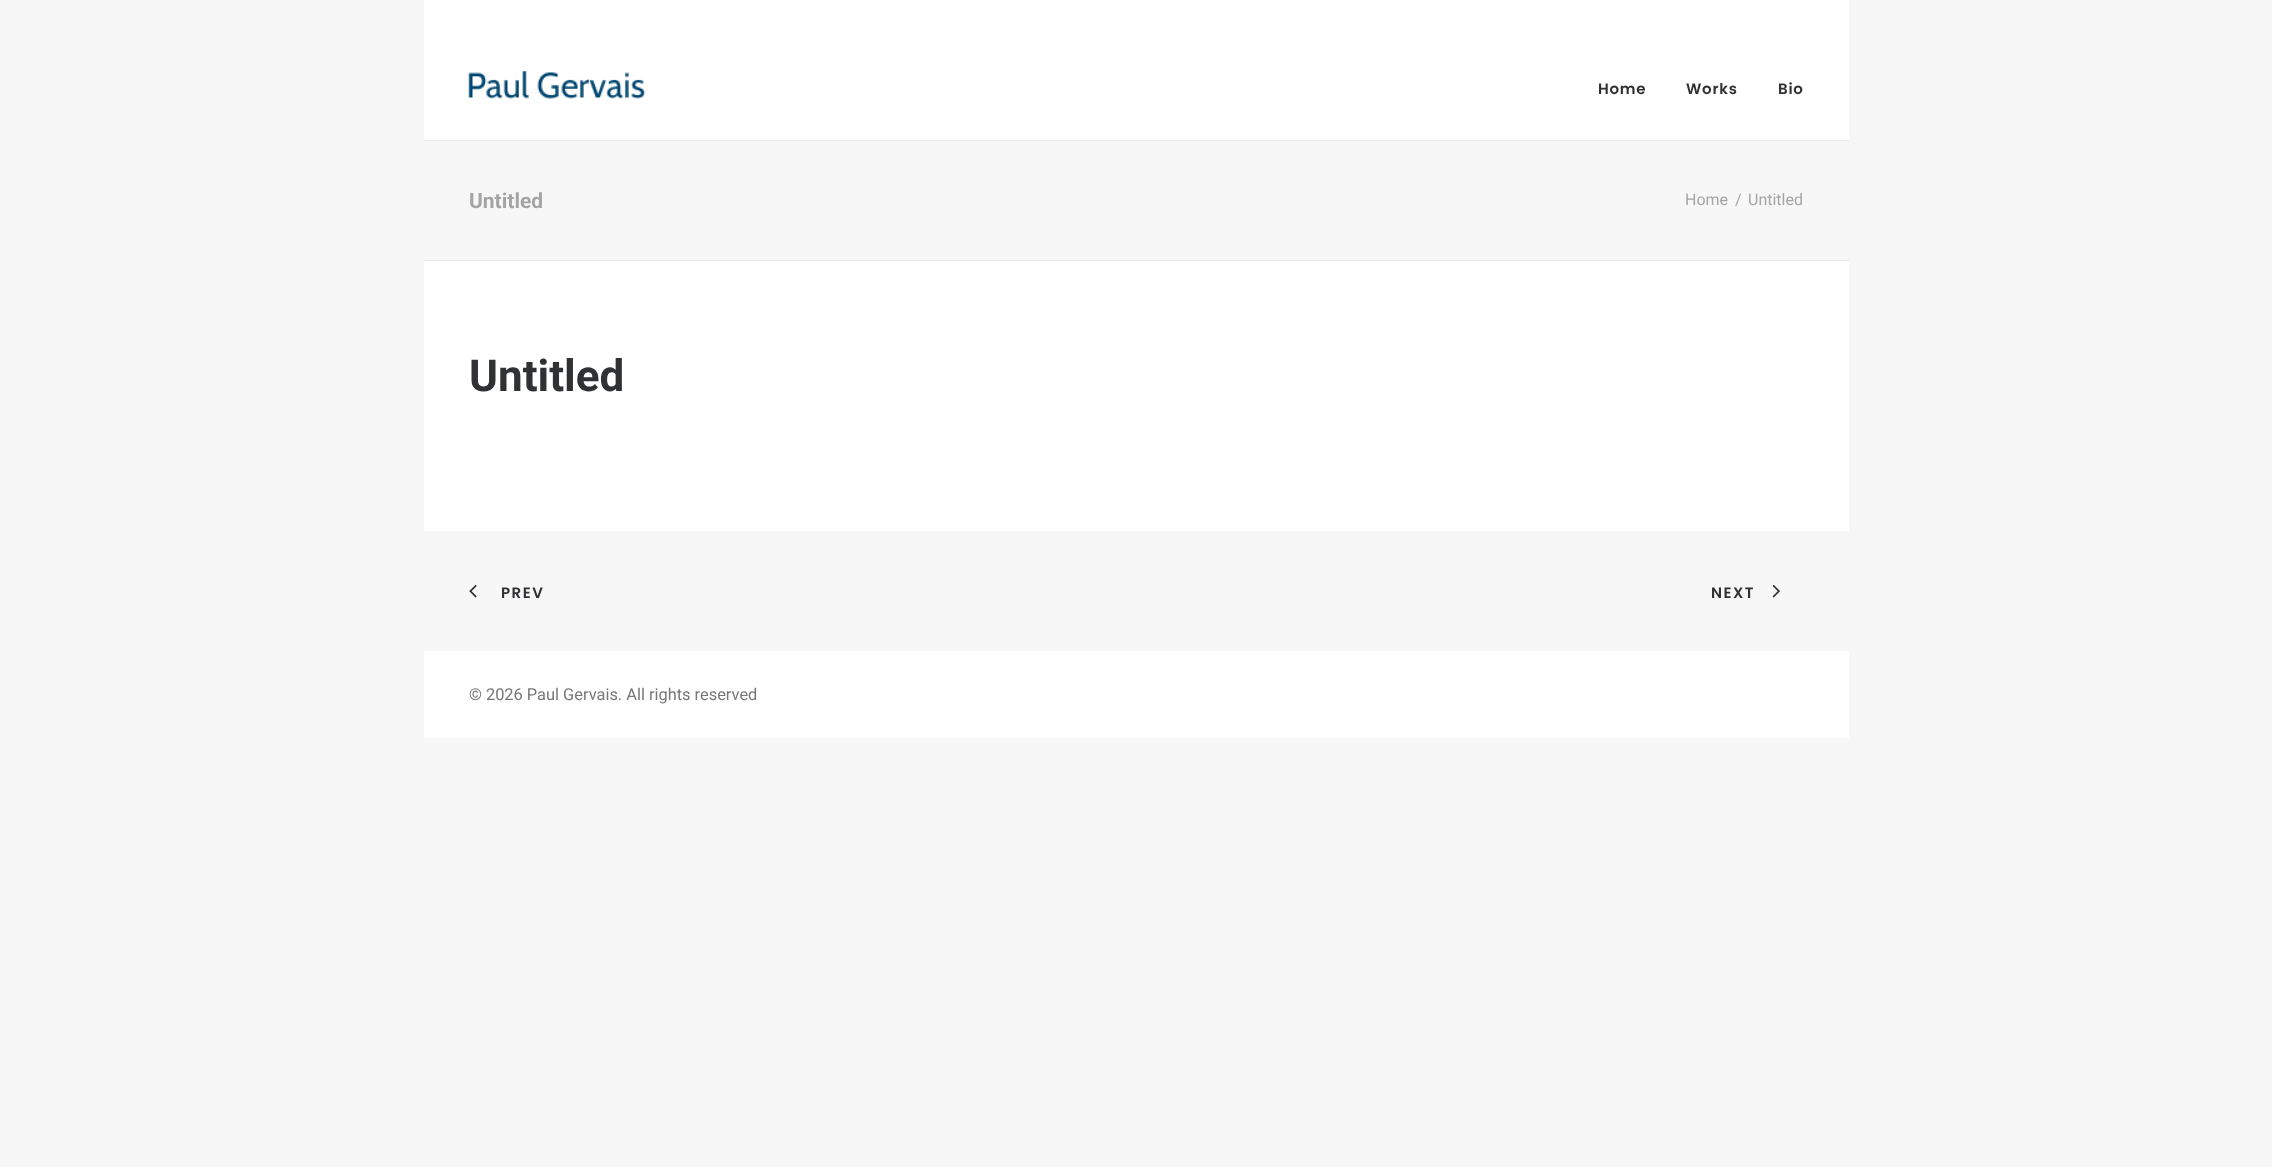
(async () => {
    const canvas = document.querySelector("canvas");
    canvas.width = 2272;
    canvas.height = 1167;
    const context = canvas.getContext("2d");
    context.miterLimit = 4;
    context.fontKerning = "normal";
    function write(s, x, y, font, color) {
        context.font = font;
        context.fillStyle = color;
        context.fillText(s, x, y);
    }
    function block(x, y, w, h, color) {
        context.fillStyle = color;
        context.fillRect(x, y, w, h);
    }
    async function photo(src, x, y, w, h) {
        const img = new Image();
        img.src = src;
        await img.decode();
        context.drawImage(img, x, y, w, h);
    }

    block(0, 0, 2272, 1167, "rgb(247, 247, 247)");
    block(424, 0, 1425, 140, "rgb(255, 255, 255)");
    await photo("media/1.png", 468, 71, 178, 28);
    context.letterSpacing = "0.75px";
    write("Home", 1598, 94, "600 15px Poppins", "rgb(48, 49, 51)");
    write("Works", 1686, 94, "600 15px Poppins", "rgb(48, 49, 51)");
    write("Bio", 1778, 94, "600 15px Poppins", "rgb(48, 49, 51)");
    block(424, 140, 1425, 1, "rgb(234, 234, 234)");
    block(424, 260, 1425, 1, "rgb(234, 234, 234)");
    context.letterSpacing = "0px";
    write("Untitled", 469, 208, "bold 21px Roboto", "rgb(164, 164, 164)");
    write("Home", 1685, 205, "16px Roboto", "rgb(164, 164, 164)");
    write("/", 1735, 205, "16px Roboto", "rgb(164, 164, 164)");
    write("Untitled", 1748, 205, "16px Roboto", "rgb(164, 164, 164)");
    block(424, 261, 1425, 270, "rgb(255, 255, 255)");
    write("Untitled", 469, 391, "bold 44px Roboto", "rgb(48, 49, 51)");
    await photo("media/2.png", 469, 584, 8, 14);
    context.letterSpacing = "1.5px";
    write("PREV", 501, 598, "600 15px Poppins", "rgb(48, 49, 51)");
    write("NEXT", 1711, 598, "600 15px Poppins", "rgb(48, 49, 51)");
    await photo("media/3.png", 1772, 584, 8, 14);
    block(424, 651, 1425, 87, "rgb(255, 255, 255)");
    context.letterSpacing = "0px";
    write("© 2026 Paul Gervais. All rights reserved", 469, 700, "16.4px Roboto", "rgb(119, 119, 119)");
})();
